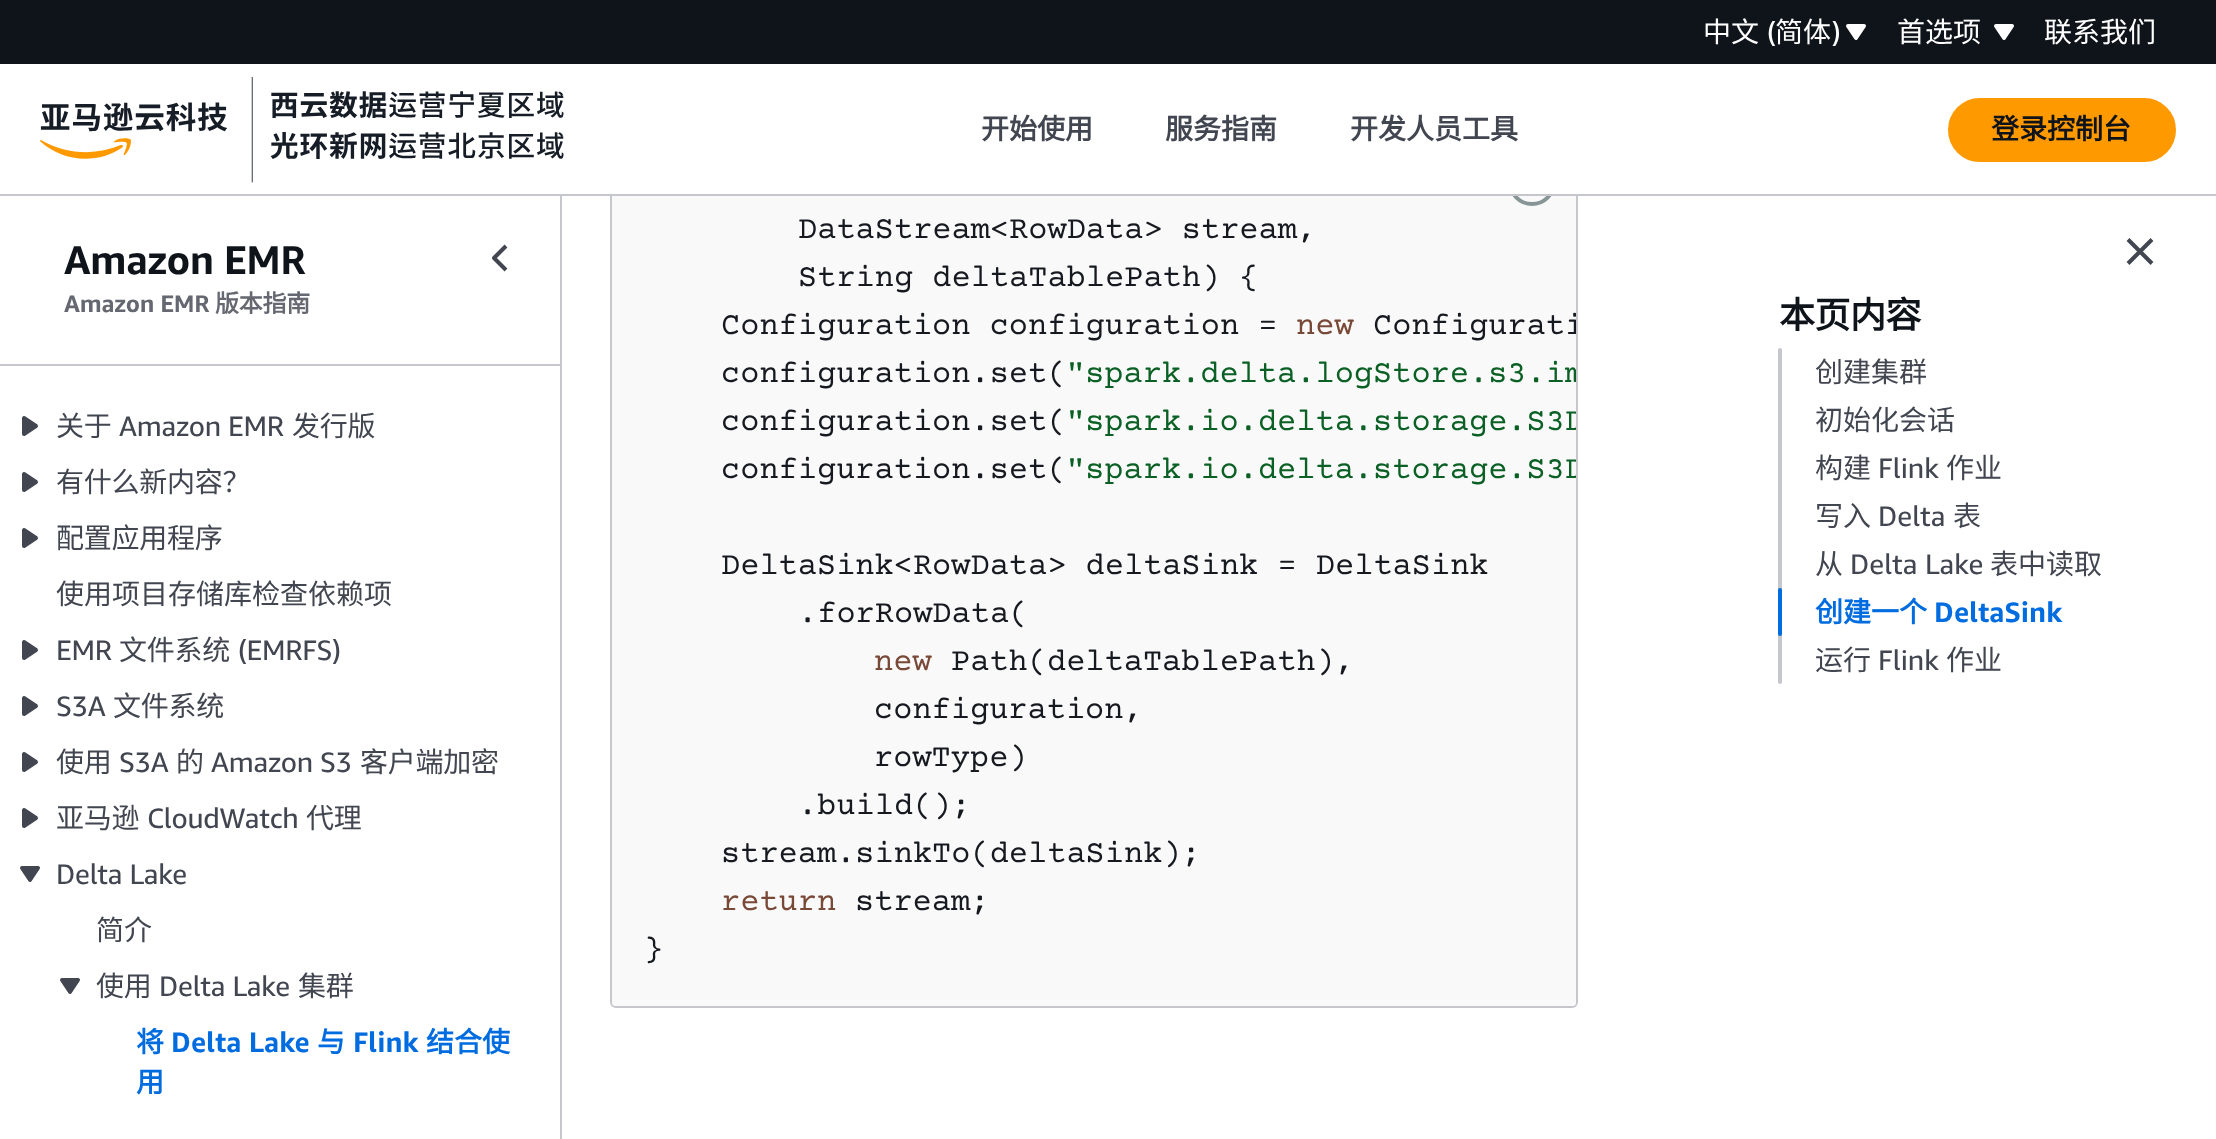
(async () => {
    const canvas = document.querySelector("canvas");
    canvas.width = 2216;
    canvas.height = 1139;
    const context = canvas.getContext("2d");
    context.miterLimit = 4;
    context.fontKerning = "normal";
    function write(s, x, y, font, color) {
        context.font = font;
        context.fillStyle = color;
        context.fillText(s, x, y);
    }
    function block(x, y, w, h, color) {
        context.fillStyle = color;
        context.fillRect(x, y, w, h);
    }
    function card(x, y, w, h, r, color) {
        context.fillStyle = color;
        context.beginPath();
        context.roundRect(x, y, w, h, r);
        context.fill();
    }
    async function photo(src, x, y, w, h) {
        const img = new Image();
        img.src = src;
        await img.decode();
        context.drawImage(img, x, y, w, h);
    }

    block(0, 0, 2216, 1139, "rgb(255, 255, 255)");
    context.beginPath();
    context.roundRect(611, 125, 966, 882, 5);
    context.strokeStyle = "rgb(198, 198, 205)";
    context.lineWidth = 2;
    context.stroke();
    card(612, 126, 964, 880, 4, "rgb(249, 249, 249)");
    context.beginPath();
    context.roundRect(1510, 152, 44, 52, 22);
    context.strokeStyle = "rgb(135, 149, 150)";
    context.lineWidth = 4;
    context.stroke();
    block(610, 124, 968, 70, "rgb(255, 255, 255)");
    block(0, 194, 2216, 2, "rgb(198, 198, 205)");
    block(0, 0, 2216, 64, "rgb(15, 20, 26)");
    write("中文", 1703, 42, "28px Noto Sans CJK SC", "rgb(255, 255, 255)");
    write("(", 1767, 42, "28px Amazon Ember", "rgb(255, 255, 255)");
    write("简体", 1775, 42, "28px Noto Sans CJK SC", "rgb(255, 255, 255)");
    write(")", 1832, 42, "28px Amazon Ember", "rgb(255, 255, 255)");
    context.beginPath();
    context.moveTo(1856, 38);
    context.lineTo(1864, 26);
    context.lineTo(1848, 26);
    context.closePath();
    context.fill();
    context.strokeStyle = "rgb(255, 255, 255)";
    context.lineJoin = "round";
    context.stroke();
    write("首选项", 1897, 42, "28px Noto Sans CJK SC", "rgb(255, 255, 255)");
    context.beginPath();
    context.moveTo(2004, 38);
    context.lineTo(2012, 26);
    context.lineTo(1996, 26);
    context.closePath();
    context.fill();
    context.stroke();
    write("联系我们", 2044, 42, "28px Noto Sans CJK SC", "rgb(255, 255, 255)");
    await photo("media/1.png", 40, 77, 524, 106);
    write("开始使用", 981, 139, "bold 28px Noto Sans CJK SC", "rgb(66, 70, 80)");
    write("服务指南", 1165, 139, "bold 28px Noto Sans CJK SC", "rgb(66, 70, 80)");
    write("开发人员工具", 1350, 139, "bold 28px Noto Sans CJK SC", "rgb(66, 70, 80)");
    context.fillStyle = "rgb(255, 153, 0)";
    context.beginPath();
    context.roundRect(1950, 100, 224, 60, 30);
    context.fill();
    context.strokeStyle = "rgb(255, 153, 0)";
    context.lineJoin = "miter";
    context.stroke();
    write("登录控制台", 1991, 139, "bold 28px Noto Sans CJK SC", "rgb(15, 20, 26)");
    block(560, 196, 2, 943, "rgb(198, 198, 205)");
    context.beginPath();
    context.moveTo(506, 246);
    context.lineTo(494, 258);
    context.lineTo(506, 270);
    context.strokeStyle = "rgb(66, 70, 80)";
    context.lineJoin = "round";
    context.stroke();
    block(0, 364, 560, 2, "rgb(198, 198, 205)");
    context.letterSpacing = "-0.5px";
    write("Amazon EMR", 64, 274, "bold 40px Amazon Ember", "rgb(15, 20, 26)");
    context.letterSpacing = "-0.25px";
    write("Amazon EMR", 64, 312, "bold 24px Amazon Ember", "rgb(101, 104, 113)");
    write("版本指南", 215, 312, "bold 24px Noto Sans CJK SC", "rgb(101, 104, 113)");
    context.fillStyle = "rgb(66, 70, 80)";
    context.beginPath();
    context.moveTo(36, 426);
    context.lineTo(24, 418);
    context.lineTo(24, 434);
    context.closePath();
    context.fill();
    context.stroke();
    write("关于", 56, 436, "28px Noto Sans CJK SC", "rgb(66, 70, 80)");
    write("Amazon EMR", 119, 436, "28px Amazon Ember", "rgb(66, 70, 80)");
    write("发行版", 292, 436, "28px Noto Sans CJK SC", "rgb(66, 70, 80)");
    context.beginPath();
    context.moveTo(36, 482);
    context.lineTo(24, 474);
    context.lineTo(24, 490);
    context.closePath();
    context.fill();
    context.stroke();
    write("有什么新内容？", 56, 492, "28px Noto Sans CJK SC", "rgb(66, 70, 80)");
    context.beginPath();
    context.moveTo(36, 538);
    context.lineTo(24, 530);
    context.lineTo(24, 546);
    context.closePath();
    context.fill();
    context.stroke();
    write("配置应用程序", 56, 548, "28px Noto Sans CJK SC", "rgb(66, 70, 80)");
    context.letterSpacing = "0px";
    write("使用项目存储库检查依赖项", 56, 604, "28px Noto Sans CJK SC", "rgb(66, 70, 80)");
    context.beginPath();
    context.moveTo(36, 650);
    context.lineTo(24, 642);
    context.lineTo(24, 658);
    context.closePath();
    context.fill();
    context.stroke();
    context.letterSpacing = "-0.25px";
    write("EMR", 56, 660, "28px Amazon Ember", "rgb(66, 70, 80)");
    write("文件系统", 119, 660, "28px Noto Sans CJK SC", "rgb(66, 70, 80)");
    write("(EMRFS)", 238, 660, "28px Amazon Ember", "rgb(66, 70, 80)");
    context.beginPath();
    context.moveTo(36, 706);
    context.lineTo(24, 698);
    context.lineTo(24, 714);
    context.closePath();
    context.fill();
    context.stroke();
    write("S3A", 56, 716, "28px Amazon Ember", "rgb(66, 70, 80)");
    write("文件系统", 113, 716, "28px Noto Sans CJK SC", "rgb(66, 70, 80)");
    context.beginPath();
    context.moveTo(36, 762);
    context.lineTo(24, 754);
    context.lineTo(24, 770);
    context.closePath();
    context.fill();
    context.stroke();
    write("使用", 56, 772, "28px Noto Sans CJK SC", "rgb(66, 70, 80)");
    write("S3A", 119, 772, "28px Amazon Ember", "rgb(66, 70, 80)");
    write("的", 176, 772, "28px Noto Sans CJK SC", "rgb(66, 70, 80)");
    write("Amazon S3", 211, 772, "28px Amazon Ember", "rgb(66, 70, 80)");
    write("客户端加密", 360, 772, "28px Noto Sans CJK SC", "rgb(66, 70, 80)");
    context.beginPath();
    context.moveTo(36, 818);
    context.lineTo(24, 810);
    context.lineTo(24, 826);
    context.closePath();
    context.fill();
    context.stroke();
    write("亚马逊", 56, 828, "28px Noto Sans CJK SC", "rgb(66, 70, 80)");
    write("CloudWatch", 147, 828, "28px Amazon Ember", "rgb(66, 70, 80)");
    write("代理", 306, 828, "28px Noto Sans CJK SC", "rgb(66, 70, 80)");
    context.beginPath();
    context.moveTo(30, 880);
    context.lineTo(38, 868);
    context.lineTo(22, 868);
    context.closePath();
    context.fill();
    context.stroke();
    write("Delta Lake", 56, 884, "28px Amazon Ember", "rgb(66, 70, 80)");
    context.letterSpacing = "0px";
    write("简介", 96, 940, "28px Noto Sans CJK SC", "rgb(66, 70, 80)");
    context.beginPath();
    context.moveTo(70, 992);
    context.lineTo(78, 980);
    context.lineTo(62, 980);
    context.closePath();
    context.fill();
    context.stroke();
    context.letterSpacing = "-0.25px";
    write("使用", 96, 996, "28px Noto Sans CJK SC", "rgb(66, 70, 80)");
    write("Delta Lake", 159, 996, "28px Amazon Ember", "rgb(66, 70, 80)");
    write("集群", 298, 996, "28px Noto Sans CJK SC", "rgb(66, 70, 80)");
    context.letterSpacing = "0px";
    write("将", 136, 1052, "bold 28px Noto Sans CJK SC", "rgb(0, 108, 224)");
    write("Delta Lake", 171, 1052, "bold 28px Amazon Ember", "rgb(0, 108, 224)");
    write("与", 317, 1052, "bold 28px Noto Sans CJK SC", "rgb(0, 108, 224)");
    write("Flink", 353, 1052, "bold 28px Amazon Ember", "rgb(0, 108, 224)");
    write("结合使", 426, 1052, "bold 28px Noto Sans CJK SC", "rgb(0, 108, 224)");
    write("用", 136, 1092, "bold 28px Noto Sans CJK SC", "rgb(0, 108, 224)");
    write("DataStream<RowData> stream,", 798, 238, "32px Courier Prime", "rgb(22, 25, 31)");
    write("String deltaTablePath) {", 798, 286, "32px Courier Prime", "rgb(22, 25, 31)");
    write("Configuration configuration =", 721, 334, "32px Courier Prime", "rgb(22, 25, 31)");
    write("new", 1296, 334, "32px Courier Prime", "rgb(121, 73, 56)");
    context.save();
    context.beginPath();
    context.rect(612, 126, 964, 880);
    context.clip();
    write("Configurati", 1373, 334, "32px Courier Prime", "rgb(22, 25, 31)");
    context.restore();
    write("configuration.set(", 721, 382, "32px Courier Prime", "rgb(22, 25, 31)");
    context.save();
    context.beginPath();
    context.rect(612, 126, 964, 880);
    context.clip();
    write("\"spark.delta.logStore.s3.im", 1066, 382, "32px Courier Prime", "rgb(11, 97, 37)");
    context.restore();
    write("configuration.set(", 721, 430, "32px Courier Prime", "rgb(22, 25, 31)");
    context.save();
    context.beginPath();
    context.rect(612, 126, 964, 880);
    context.clip();
    write("\"spark.io.delta.storage.S3D", 1066, 430, "32px Courier Prime", "rgb(11, 97, 37)");
    context.restore();
    write("configuration.set(", 721, 478, "32px Courier Prime", "rgb(22, 25, 31)");
    context.save();
    context.beginPath();
    context.rect(612, 126, 964, 880);
    context.clip();
    write("\"spark.io.delta.storage.S3D", 1066, 478, "32px Courier Prime", "rgb(11, 97, 37)");
    context.restore();
    write("DeltaSink<RowData> deltaSink = DeltaSink", 721, 574, "32px Courier Prime", "rgb(22, 25, 31)");
    write(".forRowData(", 798, 622, "32px Courier Prime", "rgb(22, 25, 31)");
    write("new", 874, 670, "32px Courier Prime", "rgb(121, 73, 56)");
    write("Path(deltaTablePath),", 951, 670, "32px Courier Prime", "rgb(22, 25, 31)");
    write("configuration,", 874, 718, "32px Courier Prime", "rgb(22, 25, 31)");
    write("rowType)", 874, 766, "32px Courier Prime", "rgb(22, 25, 31)");
    write(".build();", 798, 814, "32px Courier Prime", "rgb(22, 25, 31)");
    write("stream.sinkTo(deltaSink);", 721, 862, "32px Courier Prime", "rgb(22, 25, 31)");
    write("return", 721, 910, "32px Courier Prime", "rgb(121, 73, 56)");
    write("stream;", 855, 910, "32px Courier Prime", "rgb(22, 25, 31)");
    write("}", 644, 958, "32px Courier Prime", "rgb(22, 25, 31)");
    context.beginPath();
    context.moveTo(2128, 239.5);
    context.lineTo(2152, 263.5);
    context.moveTo(2128, 263.5);
    context.lineTo(2152, 239.5);
    context.stroke();
    context.letterSpacing = "-0.5px";
    write("本页内容", 1779, 328, "bold 36px Noto Sans CJK SC", "rgb(15, 20, 26)");
    card(1778, 348, 4, 336, 2, "rgb(198, 198, 205)");
    context.letterSpacing = "0px";
    write("创建集群", 1815, 382, "28px Noto Sans CJK SC", "rgb(66, 70, 80)");
    write("初始化会话", 1815, 430, "28px Noto Sans CJK SC", "rgb(66, 70, 80)");
    write("构建", 1815, 478, "28px Noto Sans CJK SC", "rgb(66, 70, 80)");
    write("Flink", 1878, 478, "28px Amazon Ember", "rgb(66, 70, 80)");
    write("作业", 1946, 478, "28px Noto Sans CJK SC", "rgb(66, 70, 80)");
    write("写入", 1815, 526, "28px Noto Sans CJK SC", "rgb(66, 70, 80)");
    write("Delta", 1878, 526, "28px Amazon Ember", "rgb(66, 70, 80)");
    write("表", 1953, 526, "28px Noto Sans CJK SC", "rgb(66, 70, 80)");
    write("从", 1815, 574, "28px Noto Sans CJK SC", "rgb(66, 70, 80)");
    write("Delta Lake", 1850, 574, "28px Amazon Ember", "rgb(66, 70, 80)");
    write("表中读取", 1990, 574, "28px Noto Sans CJK SC", "rgb(66, 70, 80)");
    card(1778, 588, 4, 48, 2, "rgb(0, 108, 224)");
    write("创建一个", 1815, 622, "bold 28px Noto Sans CJK SC", "rgb(0, 108, 224)");
    write("DeltaSink", 1934, 622, "bold 28px Amazon Ember", "rgb(0, 108, 224)");
    write("运行", 1815, 670, "28px Noto Sans CJK SC", "rgb(66, 70, 80)");
    write("Flink", 1878, 670, "28px Amazon Ember", "rgb(66, 70, 80)");
    write("作业", 1946, 670, "28px Noto Sans CJK SC", "rgb(66, 70, 80)");
})();
